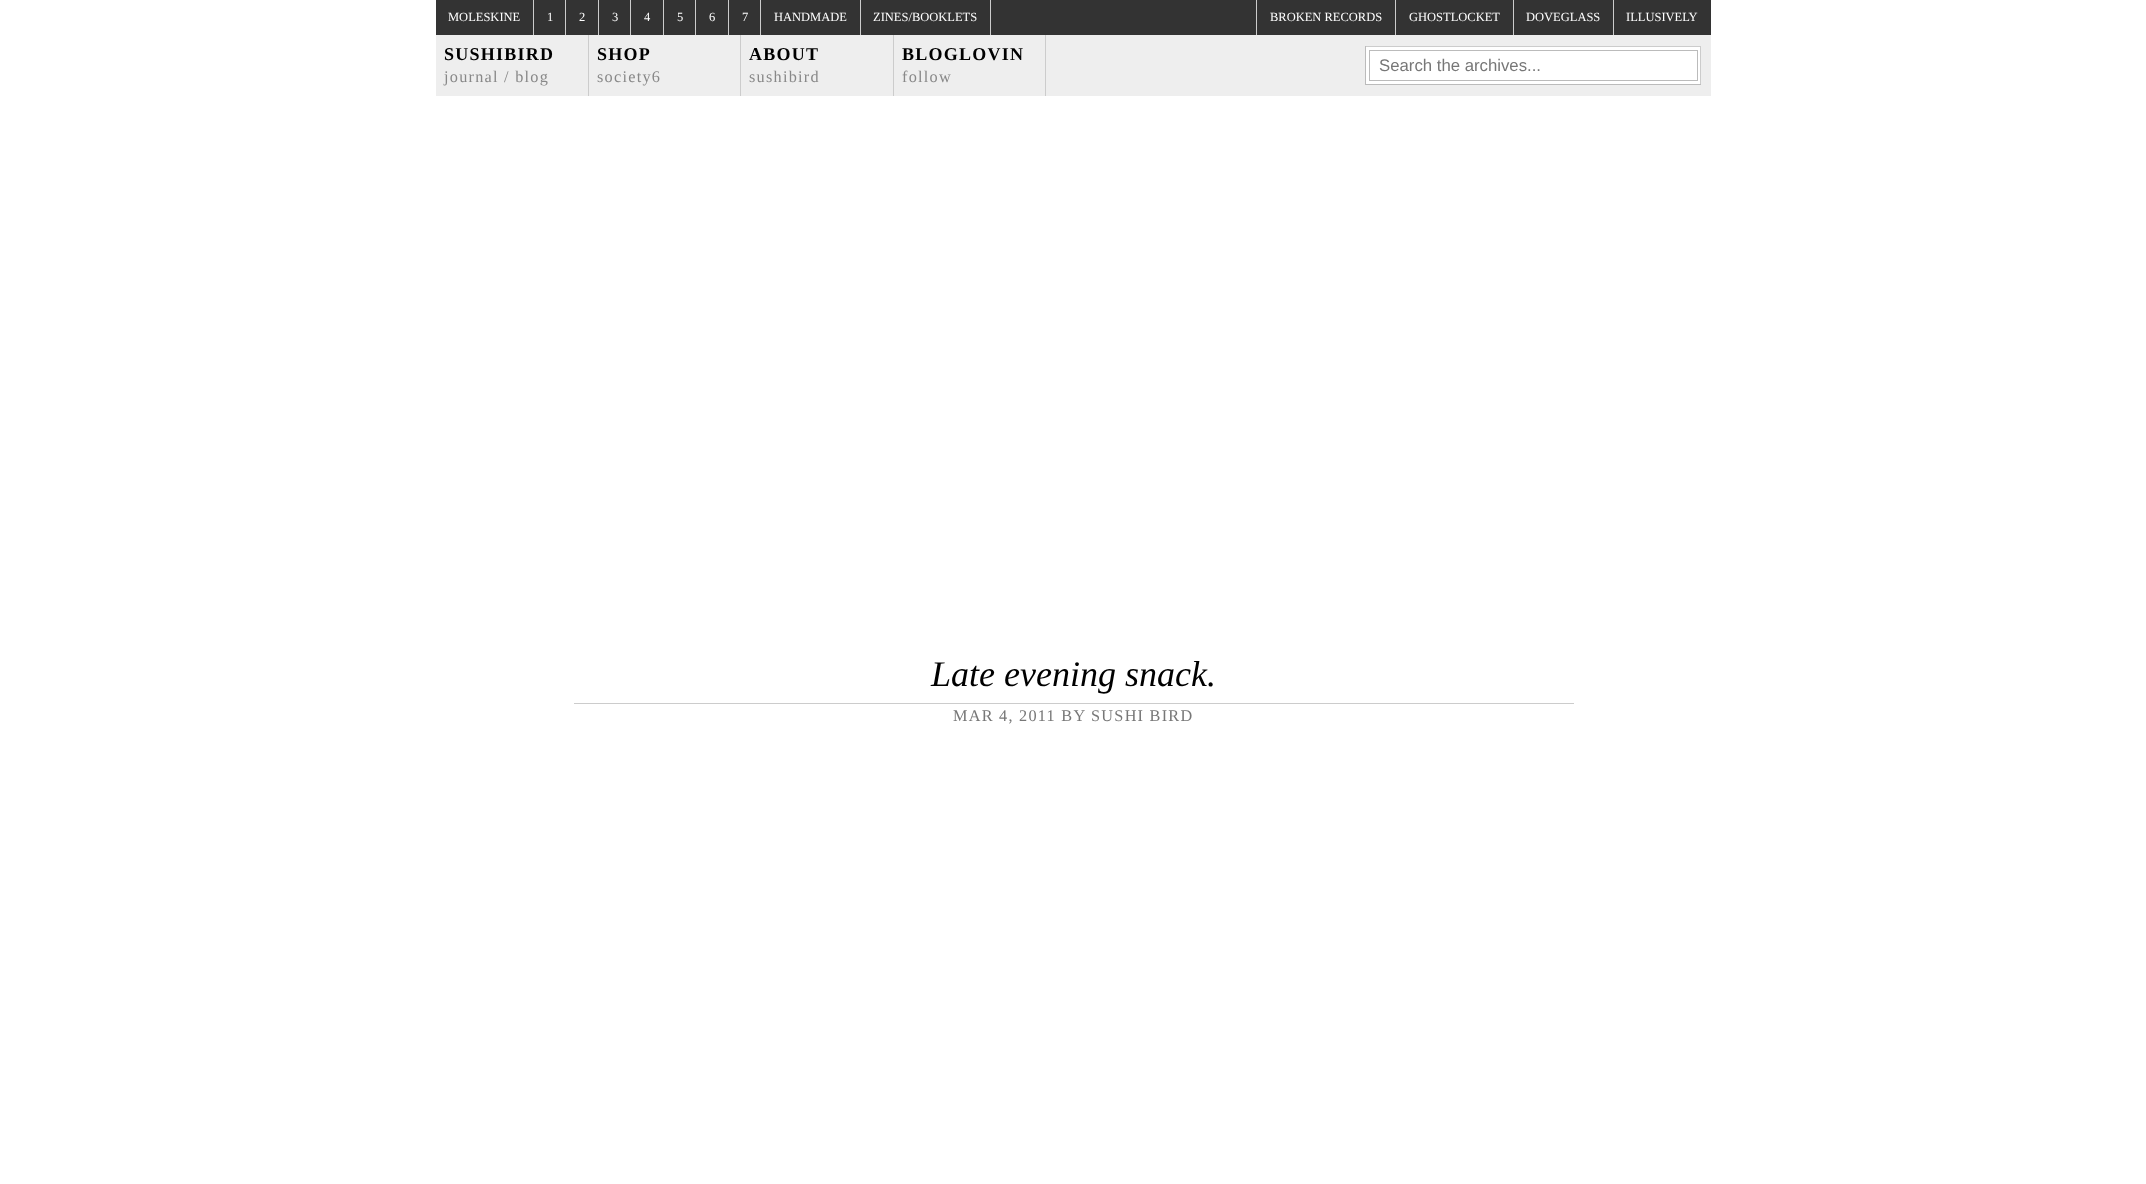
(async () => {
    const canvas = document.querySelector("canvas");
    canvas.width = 2146;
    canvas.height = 1184;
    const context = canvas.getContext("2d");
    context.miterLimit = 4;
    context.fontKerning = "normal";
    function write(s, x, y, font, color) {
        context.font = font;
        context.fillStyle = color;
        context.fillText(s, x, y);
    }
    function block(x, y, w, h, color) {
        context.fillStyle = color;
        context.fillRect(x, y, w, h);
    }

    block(0, 0, 2146, 1184, "rgb(255, 255, 255)");
    block(436, 0, 1275, 35, "rgb(51, 51, 51)");
    block(533, 0, 1, 35, "rgb(204, 204, 204)");
    write("MOLESKINE", 448, 21, "12.5px Liberation Serif", "rgb(255, 255, 255)");
    block(565, 0, 1, 35, "rgb(204, 204, 204)");
    write("1", 547, 21, "12.5px Liberation Serif", "rgb(255, 255, 255)");
    block(598, 0, 1, 35, "rgb(204, 204, 204)");
    write("2", 579, 21, "12.5px Liberation Serif", "rgb(255, 255, 255)");
    block(630, 0, 1, 35, "rgb(204, 204, 204)");
    write("3", 612, 21, "12.5px Liberation Serif", "rgb(255, 255, 255)");
    block(663, 0, 1, 35, "rgb(204, 204, 204)");
    write("4", 644, 21, "12.5px Liberation Serif", "rgb(255, 255, 255)");
    block(695, 0, 1, 35, "rgb(204, 204, 204)");
    write("5", 677, 21, "12.5px Liberation Serif", "rgb(255, 255, 255)");
    block(728, 0, 1, 35, "rgb(204, 204, 204)");
    write("6", 709, 21, "12.5px Liberation Serif", "rgb(255, 255, 255)");
    block(760, 0, 1, 35, "rgb(204, 204, 204)");
    write("7", 742, 21, "12.5px Liberation Serif", "rgb(255, 255, 255)");
    block(860, 0, 1, 35, "rgb(204, 204, 204)");
    write("HANDMADE", 774, 21, "12.5px Liberation Serif", "rgb(255, 255, 255)");
    block(990, 0, 1, 35, "rgb(204, 204, 204)");
    write("ZINES/BOOKLETS", 873, 21, "12.5px Liberation Serif", "rgb(255, 255, 255)");
    block(1256, 0, 1, 35, "rgb(204, 204, 204)");
    write("BROKEN RECORDS", 1270, 21, "12.5px Liberation Serif", "rgb(255, 255, 255)");
    block(1395, 0, 1, 35, "rgb(204, 204, 204)");
    write("GHOSTLOCKET", 1409, 21, "12.5px Liberation Serif", "rgb(255, 255, 255)");
    block(1513, 0, 1, 35, "rgb(204, 204, 204)");
    write("DOVEGLASS", 1526, 21, "12.5px Liberation Serif", "rgb(255, 255, 255)");
    block(1613, 0, 1, 35, "rgb(204, 204, 204)");
    write("ILLUSIVELY", 1626, 21, "12.5px Liberation Serif", "rgb(255, 255, 255)");
    block(436, 35, 1275, 61, "rgb(238, 238, 238)");
    block(588, 35, 1, 61, "rgb(204, 204, 204)");
    context.letterSpacing = "1.25px";
    write("SUSHIBIRD", 444, 60, "bold 18px Liberation Serif", "rgb(0, 0, 0)");
    write("journal / blog", 444, 82, "16.25px Liberation Serif", "rgb(136, 136, 136)");
    block(740, 35, 1, 61, "rgb(204, 204, 204)");
    write("SHOP", 597, 60, "bold 18px Liberation Serif", "rgb(0, 0, 0)");
    write("society6", 597, 82, "16.25px Liberation Serif", "rgb(136, 136, 136)");
    block(893, 35, 1, 61, "rgb(204, 204, 204)");
    write("ABOUT", 749, 60, "bold 18px Liberation Serif", "rgb(0, 0, 0)");
    write("sushibird", 749, 82, "16.25px Liberation Serif", "rgb(136, 136, 136)");
    block(1045, 35, 1, 61, "rgb(204, 204, 204)");
    write("BLOGLOVIN", 902, 60, "bold 18px Liberation Serif", "rgb(0, 0, 0)");
    write("follow", 902, 82, "16.25px Liberation Serif", "rgb(136, 136, 136)");
    block(1366, 47, 334, 37, "rgb(255, 255, 255)");
    block(1365, 46, 336, 1, "rgb(204, 204, 204)");
    block(1700, 46, 1, 39, "rgb(204, 204, 204)");
    block(1365, 84, 336, 1, "rgb(187, 187, 187)");
    block(1365, 46, 1, 39, "rgb(187, 187, 187)");
    context.strokeStyle = "rgb(187, 187, 187)";
    context.strokeRect(1369.5, 50.5, 328, 30);
    context.letterSpacing = "0px";
    write("Search the archives...", 1379, 71, "16.75px Liberation Sans", "rgb(119, 119, 119)");
    write("Late evening snack.", 931, 686, "italic 36px Liberation Serif", "rgb(0, 0, 0)");
    block(574, 703, 1000, 1, "rgb(204, 204, 204)");
    context.letterSpacing = "1.25px";
    write("MAR 4, 2011 BY SUSHI BIRD", 953, 721, "16.25px Liberation Serif", "rgb(119, 119, 119)");
})();
